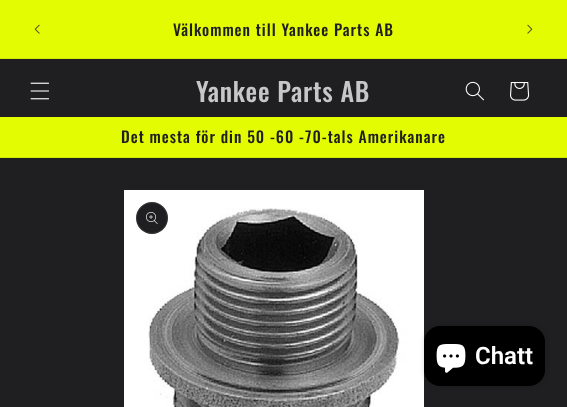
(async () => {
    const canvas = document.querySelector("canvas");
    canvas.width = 567;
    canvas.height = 407;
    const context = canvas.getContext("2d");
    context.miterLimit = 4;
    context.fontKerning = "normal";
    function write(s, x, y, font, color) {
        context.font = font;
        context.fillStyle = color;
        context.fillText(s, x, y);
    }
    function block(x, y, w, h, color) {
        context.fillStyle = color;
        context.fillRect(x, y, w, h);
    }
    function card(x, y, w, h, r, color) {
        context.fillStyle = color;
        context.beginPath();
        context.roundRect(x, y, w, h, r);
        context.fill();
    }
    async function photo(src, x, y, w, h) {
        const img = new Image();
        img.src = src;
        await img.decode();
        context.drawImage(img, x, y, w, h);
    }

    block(0, 0, 567, 407, "rgb(31, 31, 33)");
    block(0, 0, 567, 58, "rgb(227, 252, 2)");
    block(0, 58, 567, 1, "rgb(211, 234, 4)");
    await photo("media/1.png", 34, 24, 6, 10);
    context.letterSpacing = "1px";
    write("Välkommen till Yankee Parts AB", 173, 36, "500 15.6px Oswald", "rgb(31, 31, 33)");
    await photo("media/2.png", 527, 24, 6, 10);
    await photo("media/3.png", 30, 82, 20, 18);
    context.letterSpacing = "0.75px";
    write("Yankee Parts AB", 196, 102, "500 26px Oswald", "rgb(199, 199, 200)");
    await photo("media/4.png", 465, 81, 19, 20);
    await photo("media/5.png", 510, 82, 20, 19);
    block(0, 117, 567, 40, "rgb(227, 252, 2)");
    block(0, 157, 567, 1, "rgb(211, 234, 4)");
    context.letterSpacing = "1px";
    write("Det mesta för din 50 -60 -70-tals Amerikanare", 121, 143, "500 15.6px Oswald", "rgb(31, 31, 33)");
    await photo("media/6.png", 124, 190, 300, 217);
    context.beginPath();
    context.arc(152, 218, 16, 0, Math.PI * 2);
    context.fill();
    context.beginPath();
    context.arc(152, 218, 15.5, 0, Math.PI * 2);
    context.strokeStyle = "rgba(255, 255, 255, 0.1)";
    context.stroke();
    await photo("media/7.png", 146, 212, 12, 12);
    context.fillStyle = "rgba(0, 0, 0, 0.15)";
    context.filter = "blur(2.5px)";
    context.beginPath();
    context.roundRect(424, 326, 121, 60, 16);
    context.fill();
    context.filter = "none";
    card(424, 326, 121, 60, 16, "rgb(0, 0, 0)");
    await photo("media/8.png", 436, 344, 30, 29);
    context.letterSpacing = "0px";
    write("Chatt", 475, 364, "600 24px Roboto", "rgb(255, 255, 255)");
})();
